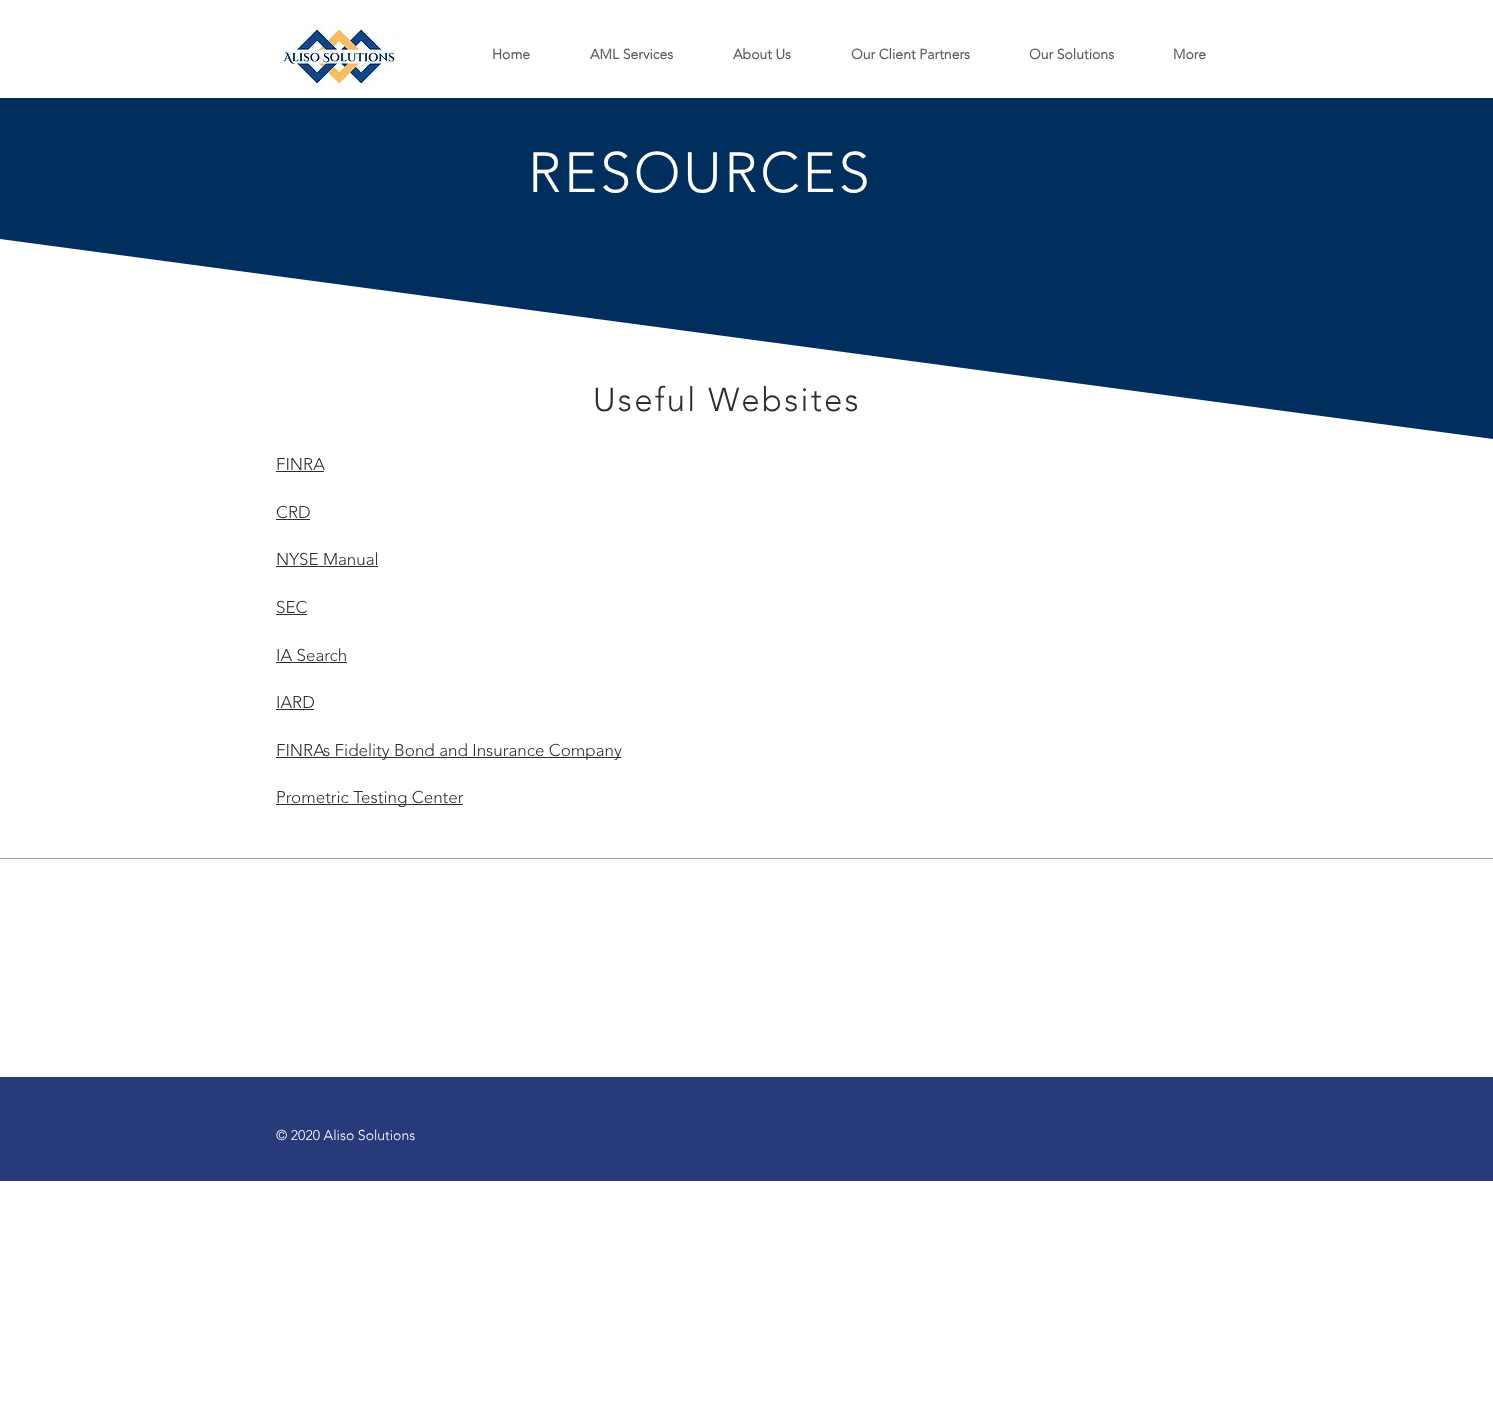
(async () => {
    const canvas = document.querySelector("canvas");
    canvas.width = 1493;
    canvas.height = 1403;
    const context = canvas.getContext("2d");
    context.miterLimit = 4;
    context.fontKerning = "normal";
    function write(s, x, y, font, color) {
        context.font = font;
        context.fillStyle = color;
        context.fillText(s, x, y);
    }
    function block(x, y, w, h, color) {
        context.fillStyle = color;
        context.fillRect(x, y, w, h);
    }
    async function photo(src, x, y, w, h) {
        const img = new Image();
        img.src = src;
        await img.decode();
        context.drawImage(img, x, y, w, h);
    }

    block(0, 0, 1493, 1403, "rgb(255, 255, 255)");
    await photo("media/1.png", 281, 23, 120, 64);
    write("Home", 492, 59, "bold 14px 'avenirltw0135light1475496'", "rgb(96, 94, 94)");
    write("AML Services", 590, 59, "bold 14px 'avenirltw0135light1475496'", "rgb(96, 94, 94)");
    write("About Us", 733, 59, "bold 14px 'avenirltw0135light1475496'", "rgb(96, 94, 94)");
    write("Our Client Partners", 851, 59, "bold 14px 'avenirltw0135light1475496'", "rgb(96, 94, 94)");
    write("Our Solutions", 1029, 59, "bold 14px 'avenirltw0135light1475496'", "rgb(96, 94, 94)");
    write("More", 1173, 59, "bold 14px 'avenirltw0135light1475496'", "rgb(96, 94, 94)");
    block(0, 98, 1493, 141, "rgb(0, 46, 93)");
    context.letterSpacing = "2.75px";
    write("RESOURCES", 528, 192, "300 56px 'avenirltw0135light1475496'", "rgb(255, 255, 255)");
    context.fillStyle = "rgb(0, 46, 93)";
    context.beginPath();
    context.moveTo(0, 239);
    context.lineTo(1493, 439);
    context.lineTo(1493, 239);
    context.closePath();
    context.fill();
    context.letterSpacing = "2.25px";
    write("Useful Websites", 593, 411, "300 33px 'avenirltw0135light1475496'", "rgb(47, 46, 46)");
    context.letterSpacing = "0px";
    write("FINRA", 276, 470, "300 17px 'avenirltw0135light1475496'", "rgb(47, 46, 46)");
    block(276, 471, 48, 1, "rgb(47, 46, 46)");
    write("CRD", 276, 518, "300 17px 'avenirltw0135light1475496'", "rgb(47, 46, 46)");
    block(276, 519, 34, 1, "rgb(47, 46, 46)");
    write("NYSE Manual", 276, 565, "300 17px 'avenirltw0135light1475496'", "rgb(47, 46, 46)");
    block(276, 566, 102, 1, "rgb(47, 46, 46)");
    write("SEC", 276, 613, "300 17px 'avenirltw0135light1475496'", "rgb(47, 46, 46)");
    block(276, 614, 31, 1, "rgb(47, 46, 46)");
    write("IA Search", 276, 661, "300 17px 'avenirltw0135light1475496'", "rgb(47, 46, 46)");
    block(276, 662, 71, 1, "rgb(47, 46, 46)");
    write("IARD", 276, 708, "300 17px 'avenirltw0135light1475496'", "rgb(47, 46, 46)");
    block(276, 709, 38, 1, "rgb(47, 46, 46)");
    block(276, 757, 345, 1, "rgb(47, 46, 46)");
    write("FINRAs Fidelity Bond and Insurance Company", 276, 756, "300 17px 'avenirltw0135light1475496'", "rgb(47, 46, 46)");
    block(276, 804, 187, 1, "rgb(47, 46, 46)");
    write("Prometric Testing Center", 276, 803, "300 17px 'avenirltw0135light1475496'", "rgb(47, 46, 46)");
    block(0, 858, 1493, 1, "rgb(160, 160, 159)");
    block(0, 1077, 1493, 104, "rgb(39, 59, 123)");
    write("© 2020 Aliso Solutions", 276, 1140, "300 14px 'avenirltw0135light1475496'", "rgb(255, 255, 255)");
})();
